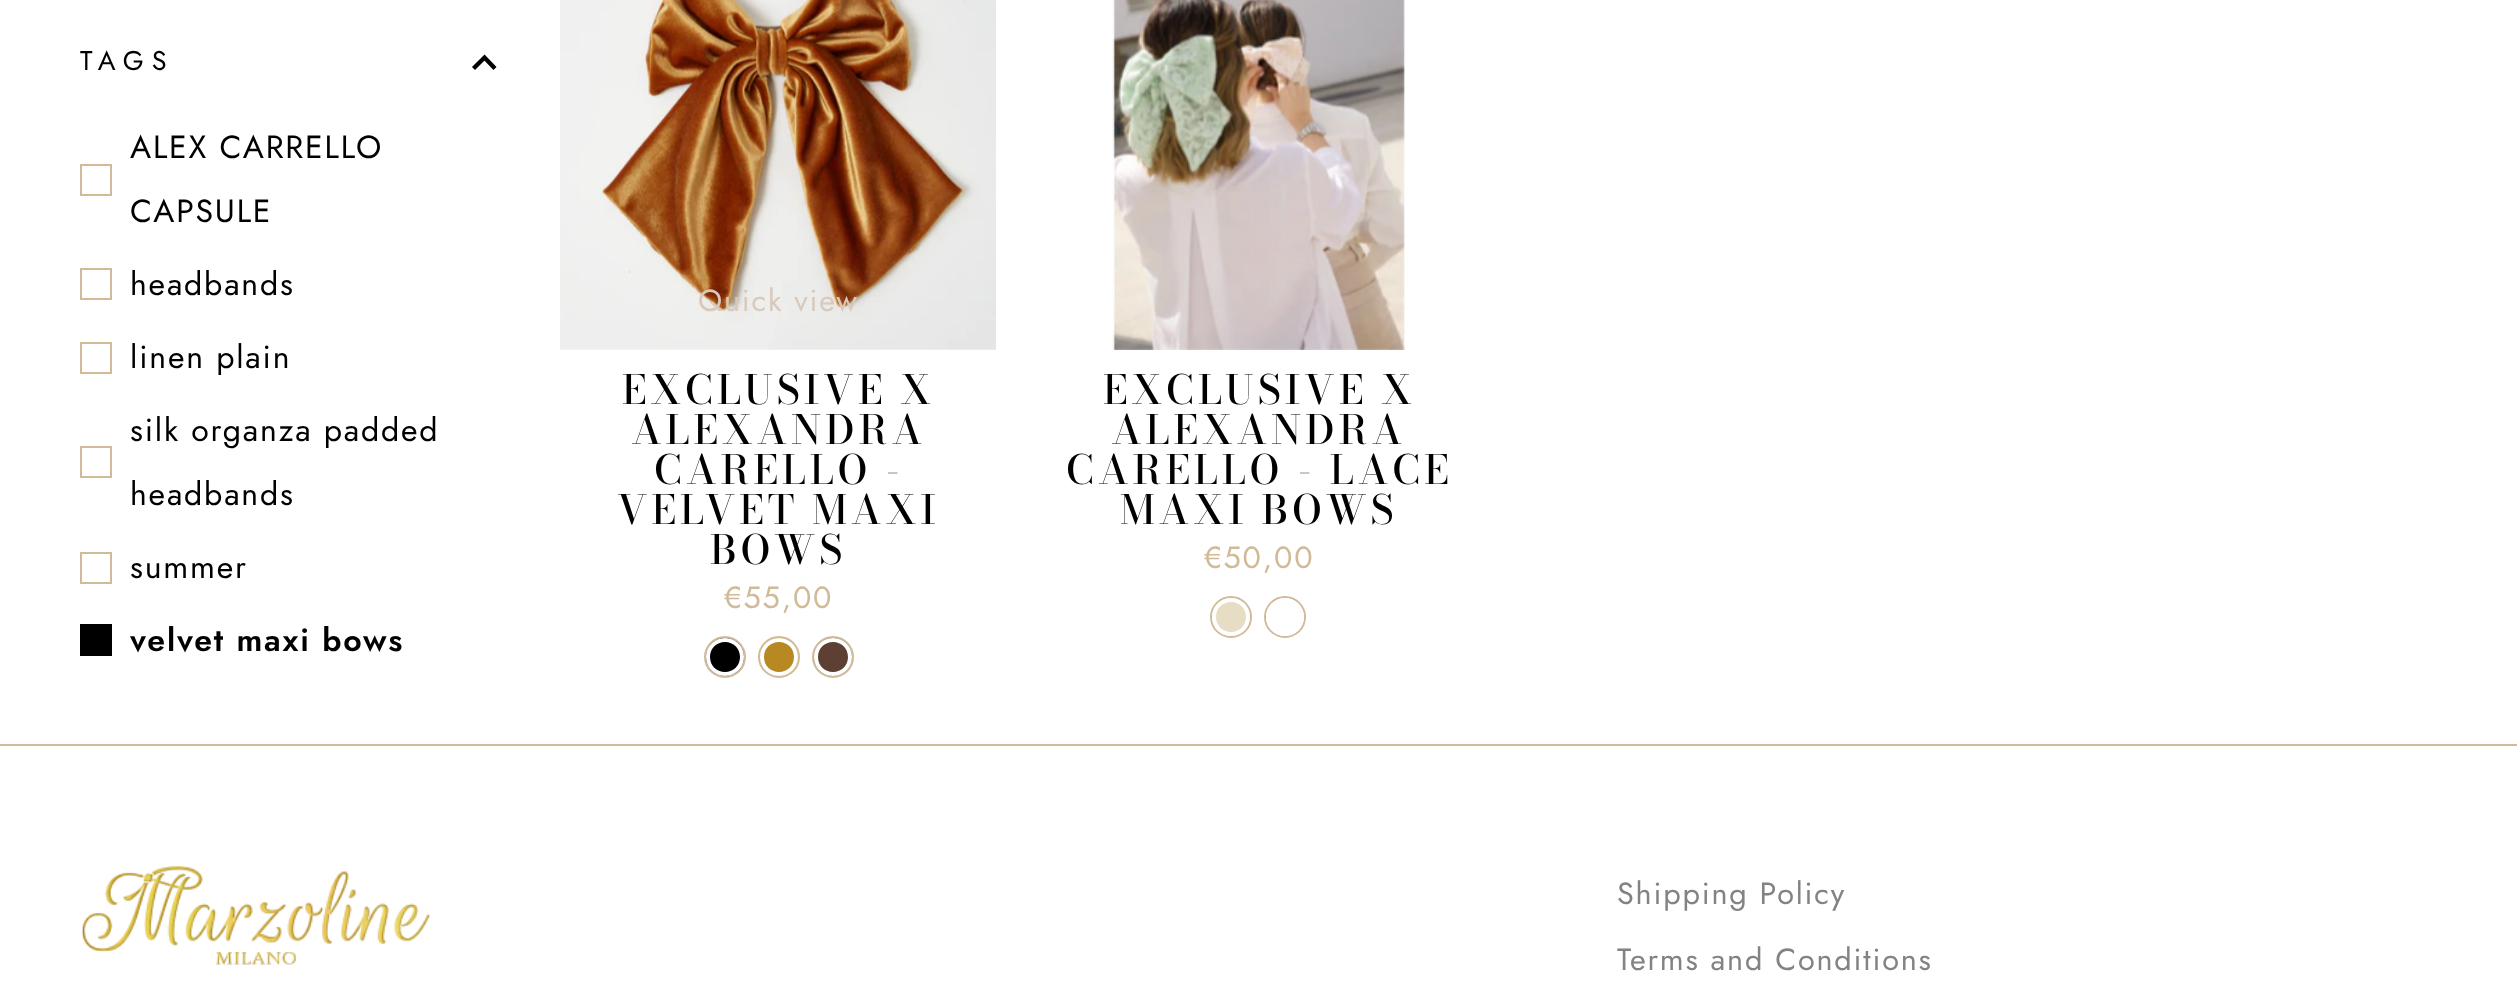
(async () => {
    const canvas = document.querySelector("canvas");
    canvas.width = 2517;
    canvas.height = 1006;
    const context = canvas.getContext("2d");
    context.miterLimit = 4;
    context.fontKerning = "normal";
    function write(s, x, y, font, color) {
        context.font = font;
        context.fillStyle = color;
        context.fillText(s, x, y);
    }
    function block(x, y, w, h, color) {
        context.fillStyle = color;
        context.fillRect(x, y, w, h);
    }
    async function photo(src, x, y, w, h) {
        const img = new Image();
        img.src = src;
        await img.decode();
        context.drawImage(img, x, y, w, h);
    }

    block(0, 0, 2517, 1006, "rgb(255, 255, 255)");
    context.letterSpacing = "8px";
    write("TAGS", 80, 70, "27px Jost", "rgb(0, 0, 0)");
    context.beginPath();
    context.moveTo(473.5, 68.5);
    context.lineTo(484.5, 57.5);
    context.lineTo(495, 68.5);
    context.strokeStyle = "rgb(0, 0, 0)";
    context.lineWidth = 4.3;
    context.stroke();
    context.letterSpacing = "1.8px";
    write("ALEX CARRELLO", 130, 158, "32px Jost", "rgb(0, 0, 0)");
    context.strokeStyle = "rgb(209, 186, 152)";
    context.lineWidth = 2;
    context.strokeRect(81, 165, 30, 30);
    write("CAPSULE", 130, 222, "32px Jost", "rgb(0, 0, 0)");
    context.strokeRect(81, 269, 30, 30);
    write("headbands", 130, 295, "32px Jost", "rgb(0, 0, 0)");
    context.strokeRect(81, 343, 30, 30);
    write("linen plain", 130, 368, "32px Jost", "rgb(0, 0, 0)");
    write("silk organza padded", 130, 441, "32px Jost", "rgb(0, 0, 0)");
    context.strokeRect(81, 447, 30, 30);
    write("headbands", 130, 505, "32px Jost", "rgb(0, 0, 0)");
    context.strokeRect(81, 553, 30, 30);
    write("summer", 130, 578, "32px Jost", "rgb(0, 0, 0)");
    block(80, 624, 32, 32, "rgb(0, 0, 0)");
    write("velvet maxi bows", 130, 651, "600 32px Jost", "rgb(0, 0, 0)");
    await photo("media/1.png", 560, 0, 436, 350);
    write("Quick view", 698, 311, "30.6px Jost", "rgb(217, 201, 187)");
    context.letterSpacing = "4px";
    write("EXCLUSIVE X", 622, 404, "500 40px Bodoni Moda", "rgb(0, 0, 0)");
    write("ALEXANDRA", 631, 444, "500 40px Bodoni Moda", "rgb(0, 0, 0)");
    write("CARELLO -", 654, 484, "500 40px Bodoni Moda", "rgb(0, 0, 0)");
    write("VELVET MAXI", 617, 524, "500 40px Bodoni Moda", "rgb(0, 0, 0)");
    write("BOWS", 710, 564, "500 40px Bodoni Moda", "rgb(0, 0, 0)");
    context.letterSpacing = "1.8px";
    write("€55,00", 724, 608, "30.6px Jost", "rgb(209, 186, 152)");
    context.beginPath();
    context.arc(725, 657, 20, 0, Math.PI * 2);
    context.stroke();
    context.fillStyle = "rgb(0, 0, 0)";
    context.beginPath();
    context.arc(725, 657, 19, 0, Math.PI * 2);
    context.fill();
    context.fillStyle = "rgb(255, 255, 255)";
    context.beginPath();
    context.moveTo(725, 638);
    context.bezierCurveTo(714.5, 638, 706, 646.5, 706, 657);
    context.bezierCurveTo(706, 667.5, 714.5, 676, 725, 676);
    context.bezierCurveTo(735.5, 676, 744, 667.5, 744, 657);
    context.bezierCurveTo(744, 646.5, 735.5, 638, 725, 638);
    context.closePath();
    context.moveTo(725, 642);
    context.bezierCurveTo(716.5, 642, 710, 648.5, 710, 657);
    context.bezierCurveTo(710, 665.5, 716.5, 672, 725, 672);
    context.bezierCurveTo(733.5, 672, 740, 665.5, 740, 657);
    context.bezierCurveTo(740, 648.5, 733.5, 642, 725, 642);
    context.closePath();
    context.fill("evenodd");
    context.beginPath();
    context.arc(779, 657, 20, 0, Math.PI * 2);
    context.stroke();
    await photo("media/2.png", 760, 638, 38, 38);
    context.beginPath();
    context.moveTo(779, 638);
    context.bezierCurveTo(768.5, 638, 760, 646.5, 760, 657);
    context.bezierCurveTo(760, 667.5, 768.5, 676, 779, 676);
    context.bezierCurveTo(789.5, 676, 798, 667.5, 798, 657);
    context.bezierCurveTo(798, 646.5, 789.5, 638, 779, 638);
    context.closePath();
    context.moveTo(779, 642);
    context.bezierCurveTo(770.5, 642, 764, 648.5, 764, 657);
    context.bezierCurveTo(764, 665.5, 770.5, 672, 779, 672);
    context.bezierCurveTo(787.5, 672, 794, 665.5, 794, 657);
    context.bezierCurveTo(794, 648.5, 787.5, 642, 779, 642);
    context.closePath();
    context.fill("evenodd");
    context.beginPath();
    context.arc(833, 657, 20, 0, Math.PI * 2);
    context.stroke();
    await photo("media/3.png", 814, 638, 38, 38);
    context.beginPath();
    context.moveTo(833, 638);
    context.bezierCurveTo(822.5, 638, 814, 646.5, 814, 657);
    context.bezierCurveTo(814, 667.5, 822.5, 676, 833, 676);
    context.bezierCurveTo(843.5, 676, 852, 667.5, 852, 657);
    context.bezierCurveTo(852, 646.5, 843.5, 638, 833, 638);
    context.closePath();
    context.moveTo(833, 642);
    context.bezierCurveTo(824.5, 642, 818, 648.5, 818, 657);
    context.bezierCurveTo(818, 665.5, 824.5, 672, 833, 672);
    context.bezierCurveTo(841.5, 672, 848, 665.5, 848, 657);
    context.bezierCurveTo(848, 648.5, 841.5, 642, 833, 642);
    context.closePath();
    context.fill("evenodd");
    await photo("media/4.png", 1112, 0, 293, 350);
    context.letterSpacing = "4px";
    write("EXCLUSIVE X", 1103, 404, "500 40px Bodoni Moda", "rgb(0, 0, 0)");
    write("ALEXANDRA", 1111, 444, "500 40px Bodoni Moda", "rgb(0, 0, 0)");
    write("CARELLO - LACE", 1066, 484, "500 40px Bodoni Moda", "rgb(0, 0, 0)");
    write("MAXI BOWS", 1120, 524, "500 40px Bodoni Moda", "rgb(0, 0, 0)");
    context.letterSpacing = "1.8px";
    write("€50,00", 1204, 568, "30.6px Jost", "rgb(209, 186, 152)");
    context.beginPath();
    context.arc(1231, 617, 20, 0, Math.PI * 2);
    context.stroke();
    await photo("media/5.png", 1212, 598, 38, 38);
    context.fillStyle = "rgb(255, 255, 255)";
    context.beginPath();
    context.moveTo(1231, 598);
    context.bezierCurveTo(1220.5, 598, 1212, 606.5, 1212, 617);
    context.bezierCurveTo(1212, 627.5, 1220.5, 636, 1231, 636);
    context.bezierCurveTo(1241.5, 636, 1250, 627.5, 1250, 617);
    context.bezierCurveTo(1250, 606.5, 1241.5, 598, 1231, 598);
    context.closePath();
    context.moveTo(1231, 602);
    context.bezierCurveTo(1222.5, 602, 1216, 608.5, 1216, 617);
    context.bezierCurveTo(1216, 625.5, 1222.5, 632, 1231, 632);
    context.bezierCurveTo(1239.5, 632, 1246, 625.5, 1246, 617);
    context.bezierCurveTo(1246, 608.5, 1239.5, 602, 1231, 602);
    context.closePath();
    context.fill("evenodd");
    context.beginPath();
    context.arc(1285, 617, 20, 0, Math.PI * 2);
    context.stroke();
    context.beginPath();
    context.moveTo(1285, 598);
    context.bezierCurveTo(1274.5, 598, 1266, 606.5, 1266, 617);
    context.bezierCurveTo(1266, 627.5, 1274.5, 636, 1285, 636);
    context.bezierCurveTo(1295.5, 636, 1304, 627.5, 1304, 617);
    context.bezierCurveTo(1304, 606.5, 1295.5, 598, 1285, 598);
    context.closePath();
    context.moveTo(1285, 602);
    context.bezierCurveTo(1276.5, 602, 1270, 608.5, 1270, 617);
    context.bezierCurveTo(1270, 625.5, 1276.5, 632, 1285, 632);
    context.bezierCurveTo(1293.5, 632, 1300, 625.5, 1300, 617);
    context.bezierCurveTo(1300, 608.5, 1293.5, 602, 1285, 602);
    context.closePath();
    context.fill("evenodd");
    block(0, 744, 2517, 2, "rgb(209, 186, 152)");
    await photo("media/6.png", 81, 866, 349, 99);
    write("Shipping Policy", 1617, 904, "30.6px Jost", "rgb(132, 130, 130)");
    write("Terms and Conditions", 1617, 970, "30.6px Jost", "rgb(132, 130, 130)");
})();
